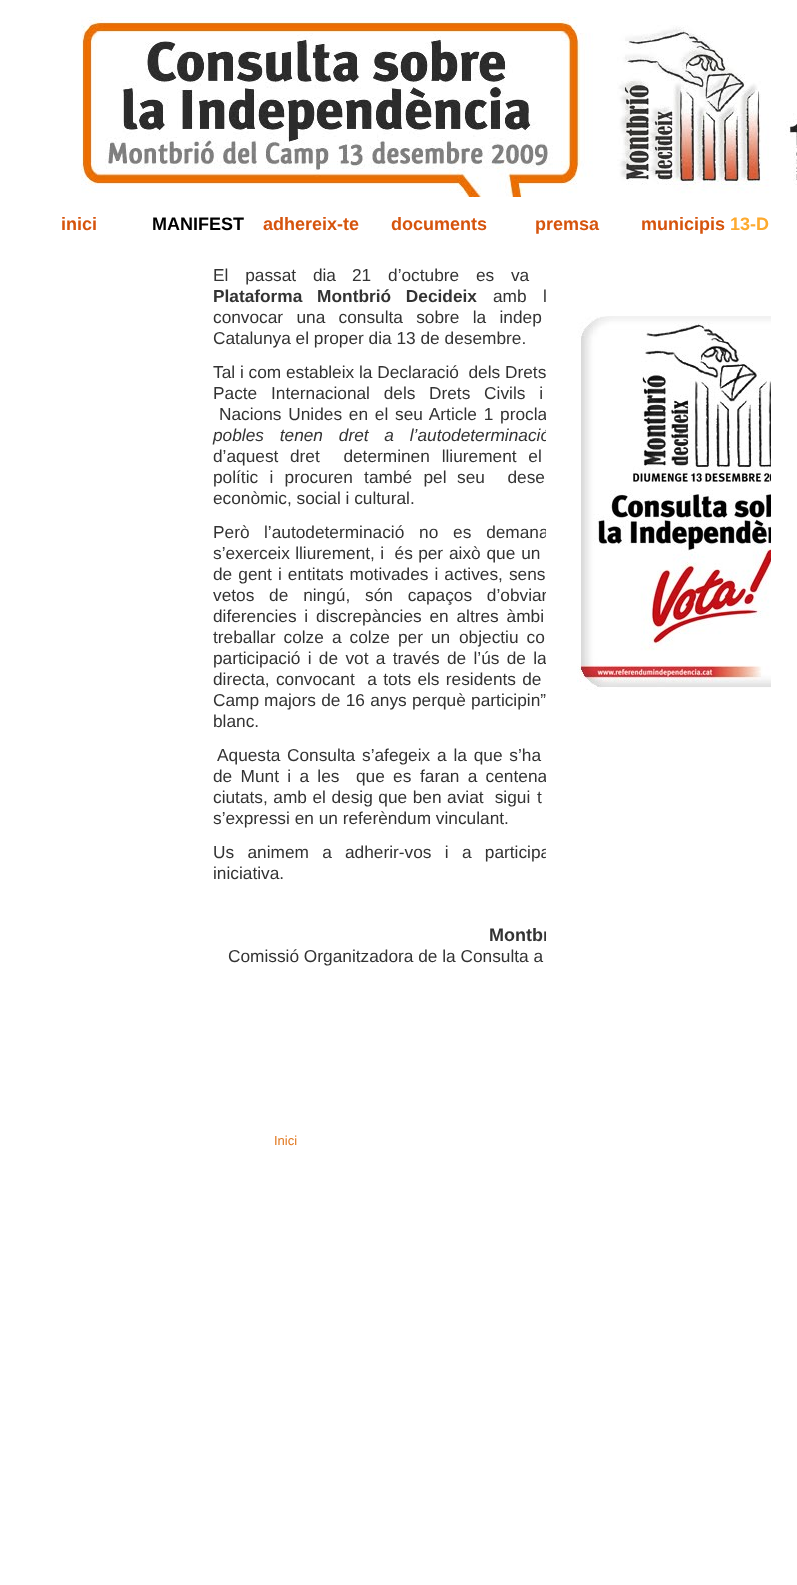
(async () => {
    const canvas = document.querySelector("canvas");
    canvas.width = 797;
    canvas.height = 1585;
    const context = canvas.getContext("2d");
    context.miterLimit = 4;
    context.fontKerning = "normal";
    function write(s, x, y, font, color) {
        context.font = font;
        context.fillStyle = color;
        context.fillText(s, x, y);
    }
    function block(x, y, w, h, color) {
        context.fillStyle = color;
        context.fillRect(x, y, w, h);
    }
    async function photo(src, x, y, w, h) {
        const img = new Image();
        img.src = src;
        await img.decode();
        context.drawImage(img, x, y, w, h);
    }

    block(0, 0, 797, 1585, "rgb(255, 255, 255)");
    await photo("media/1.png", 81, 17, 716, 180);
    write("inici", 61, 230, "bold 18px Liberation Sans", "rgb(214, 84, 13)");
    write("MANIFEST", 152, 230, "bold 18px Liberation Sans", "rgb(0, 0, 0)");
    write("adhereix-te", 263, 230, "bold 18px Liberation Sans", "rgb(214, 84, 13)");
    write("documents", 391, 230, "bold 18px Liberation Sans", "rgb(214, 84, 13)");
    write("premsa", 535, 230, "bold 18px Liberation Sans", "rgb(214, 84, 13)");
    write("municipis", 641, 230, "bold 18px Liberation Sans", "rgb(214, 84, 13)");
    write("13-D", 730, 230, "bold 18px Liberation Sans", "rgb(253, 170, 47)");
    context.wordSpacing = "12px";
    write("El passat dia", 213, 281, "17.3px Liberation Sans", "rgb(51, 51, 51)");
    write("21 d’octubre es va", 352, 281, "17.3px Liberation Sans", "rgb(51, 51, 51)");
    context.wordSpacing = "10px";
    write("Plataforma Montbrió Decideix", 213, 302, "bold 17.3px Liberation Sans", "rgb(51, 51, 51)");
    context.wordSpacing = "0px";
    write("amb", 493, 302, "17.3px Liberation Sans", "rgb(51, 51, 51)");
    context.wordSpacing = "10px";
    write("l", 543, 302, "17.3px Liberation Sans", "rgb(51, 51, 51)");
    context.wordSpacing = "8.5px";
    write("convocar una consulta sobre la indep", 213, 323, "17.3px Liberation Sans", "rgb(51, 51, 51)");
    context.wordSpacing = "0px";
    write("Catalunya el proper dia 13 de desembre.", 213, 344, "17.3px Liberation Sans", "rgb(51, 51, 51)");
    write("Tal i com", 213, 378, "17.3px Liberation Sans", "rgb(51, 51, 51)");
    context.save();
    context.beginPath();
    context.rect(26, 250, 520, 950);
    context.clip();
    write("estableix la Declaració  dels Drets", 286, 378, "17.3px Liberation Sans", "rgb(51, 51, 51)");
    context.restore();
    context.wordSpacing = "9px";
    write("Pacte Internacional dels", 213, 399, "17.3px Liberation Sans", "rgb(51, 51, 51)");
    write("Drets Civils i", 429, 399, "17.3px Liberation Sans", "rgb(51, 51, 51)");
    context.save();
    context.beginPath();
    context.rect(26, 250, 520, 950);
    context.clip();
    context.wordSpacing = "2px";
    write("Nacions Unides en el seu Article 1 procla", 219, 420, "17.3px Liberation Sans", "rgb(51, 51, 51)");
    context.wordSpacing = "11px";
    write("pobles tenen dret a l’autodeterminació", 213, 441, "italic 17.3px Liberation Sans", "rgb(51, 51, 51)");
    context.restore();
    context.wordSpacing = "0px";
    write("d’aquest", 213, 462, "17.3px Liberation Sans", "rgb(51, 51, 51)");
    context.wordSpacing = "7px";
    write("dret  determinen lliurement el", 290, 462, "17.3px Liberation Sans", "rgb(51, 51, 51)");
    context.wordSpacing = "6.5px";
    write("polític i procuren també pel", 213, 483, "17.3px Liberation Sans", "rgb(51, 51, 51)");
    write("seu  dese", 457, 483, "17.3px Liberation Sans", "rgb(51, 51, 51)");
    context.wordSpacing = "0px";
    write("econòmic, social i cultural.", 213, 504, "17.3px Liberation Sans", "rgb(51, 51, 51)");
    write("Però", 213, 538, "17.3px Liberation Sans", "rgb(51, 51, 51)");
    context.save();
    context.beginPath();
    context.rect(26, 250, 520, 950);
    context.clip();
    context.wordSpacing = "10px";
    write("l’autodeterminació no es demana", 264, 538, "17.3px Liberation Sans", "rgb(51, 51, 51)");
    context.restore();
    context.wordSpacing = "0.5px";
    write("s’exerceix lliurement, i  és per", 213, 559, "17.3px Liberation Sans", "rgb(51, 51, 51)");
    context.wordSpacing = "1px";
    write("això que un", 449, 559, "17.3px Liberation Sans", "rgb(51, 51, 51)");
    context.wordSpacing = "1.25px";
    write("de gent i entitats motivades i actives, sens", 213, 580, "17.3px Liberation Sans", "rgb(51, 51, 51)");
    context.save();
    context.beginPath();
    context.rect(26, 250, 520, 950);
    context.clip();
    context.wordSpacing = "10px";
    write("vetos de ningú, són capaços d’obviar", 213, 601, "17.3px Liberation Sans", "rgb(51, 51, 51)");
    context.restore();
    context.wordSpacing = "3px";
    write("diferencies i", 213, 622, "17.3px Liberation Sans", "rgb(51, 51, 51)");
    write("discrepàncies en altres àmbi", 316, 622, "17.3px Liberation Sans", "rgb(51, 51, 51)");
    context.wordSpacing = "3.25px";
    write("treballar colze a colze per un", 213, 643, "17.3px Liberation Sans", "rgb(51, 51, 51)");
    write("objectiu co", 459, 643, "17.3px Liberation Sans", "rgb(51, 51, 51)");
    context.save();
    context.beginPath();
    context.rect(26, 250, 520, 950);
    context.clip();
    context.wordSpacing = "2.5px";
    write("participació i de vot a través de l’ús de la", 213, 664, "17.3px Liberation Sans", "rgb(51, 51, 51)");
    context.restore();
    context.wordSpacing = "1.5px";
    write("directa, convocant  a tots els residents de", 213, 685, "17.3px Liberation Sans", "rgb(51, 51, 51)");
    context.wordSpacing = "0px";
    write("Camp", 213, 706, "17.3px Liberation Sans", "rgb(51, 51, 51)");
    context.wordSpacing = "0.5px";
    write("majors de 16 anys perquè participin”", 264, 706, "17.3px Liberation Sans", "rgb(51, 51, 51)");
    context.wordSpacing = "0px";
    write("blanc.", 213, 727, "17.3px Liberation Sans", "rgb(51, 51, 51)");
    write("Aquesta", 217, 761, "17.3px Liberation Sans", "rgb(51, 51, 51)");
    context.wordSpacing = "2px";
    write("Consulta s’afegeix a la que s’ha", 287, 761, "17.3px Liberation Sans", "rgb(51, 51, 51)");
    context.wordSpacing = "3.5px";
    write("de Munt i a les  que es", 213, 782, "17.3px Liberation Sans", "rgb(51, 51, 51)");
    context.save();
    context.beginPath();
    context.rect(26, 250, 520, 950);
    context.clip();
    write("faran a centena", 420, 782, "17.3px Liberation Sans", "rgb(51, 51, 51)");
    context.restore();
    context.wordSpacing = "0.75px";
    write("ciutats, amb el desig que ben aviat  sigui", 213, 803, "17.3px Liberation Sans", "rgb(51, 51, 51)");
    context.wordSpacing = "1px";
    write("t", 537, 803, "17.3px Liberation Sans", "rgb(51, 51, 51)");
    context.wordSpacing = "0px";
    write("s’expressi en un referèndum vinculant.", 213, 824, "17.3px Liberation Sans", "rgb(51, 51, 51)");
    context.wordSpacing = "8.5px";
    write("Us animem a", 213, 858, "17.3px Liberation Sans", "rgb(51, 51, 51)");
    context.save();
    context.beginPath();
    context.rect(26, 250, 520, 950);
    context.clip();
    write("adherir-vos i a participa", 345, 858, "17.3px Liberation Sans", "rgb(51, 51, 51)");
    context.restore();
    context.wordSpacing = "0px";
    write("iniciativa.", 213, 879, "17.3px Liberation Sans", "rgb(51, 51, 51)");
    context.save();
    context.beginPath();
    context.rect(26, 250, 520, 950);
    context.clip();
    write("Montbr", 489, 941, "bold 18px Liberation Sans", "rgb(51, 51, 51)");
    context.restore();
    write("Comissió Organitzadora de la Consulta a", 228, 962, "17.3px Liberation Sans", "rgb(51, 51, 51)");
    write("Inici", 274, 1145, "13px Liberation Sans", "rgb(225, 119, 30)");
    await photo("media/2.png", 577, 316, 194, 374);
})();
